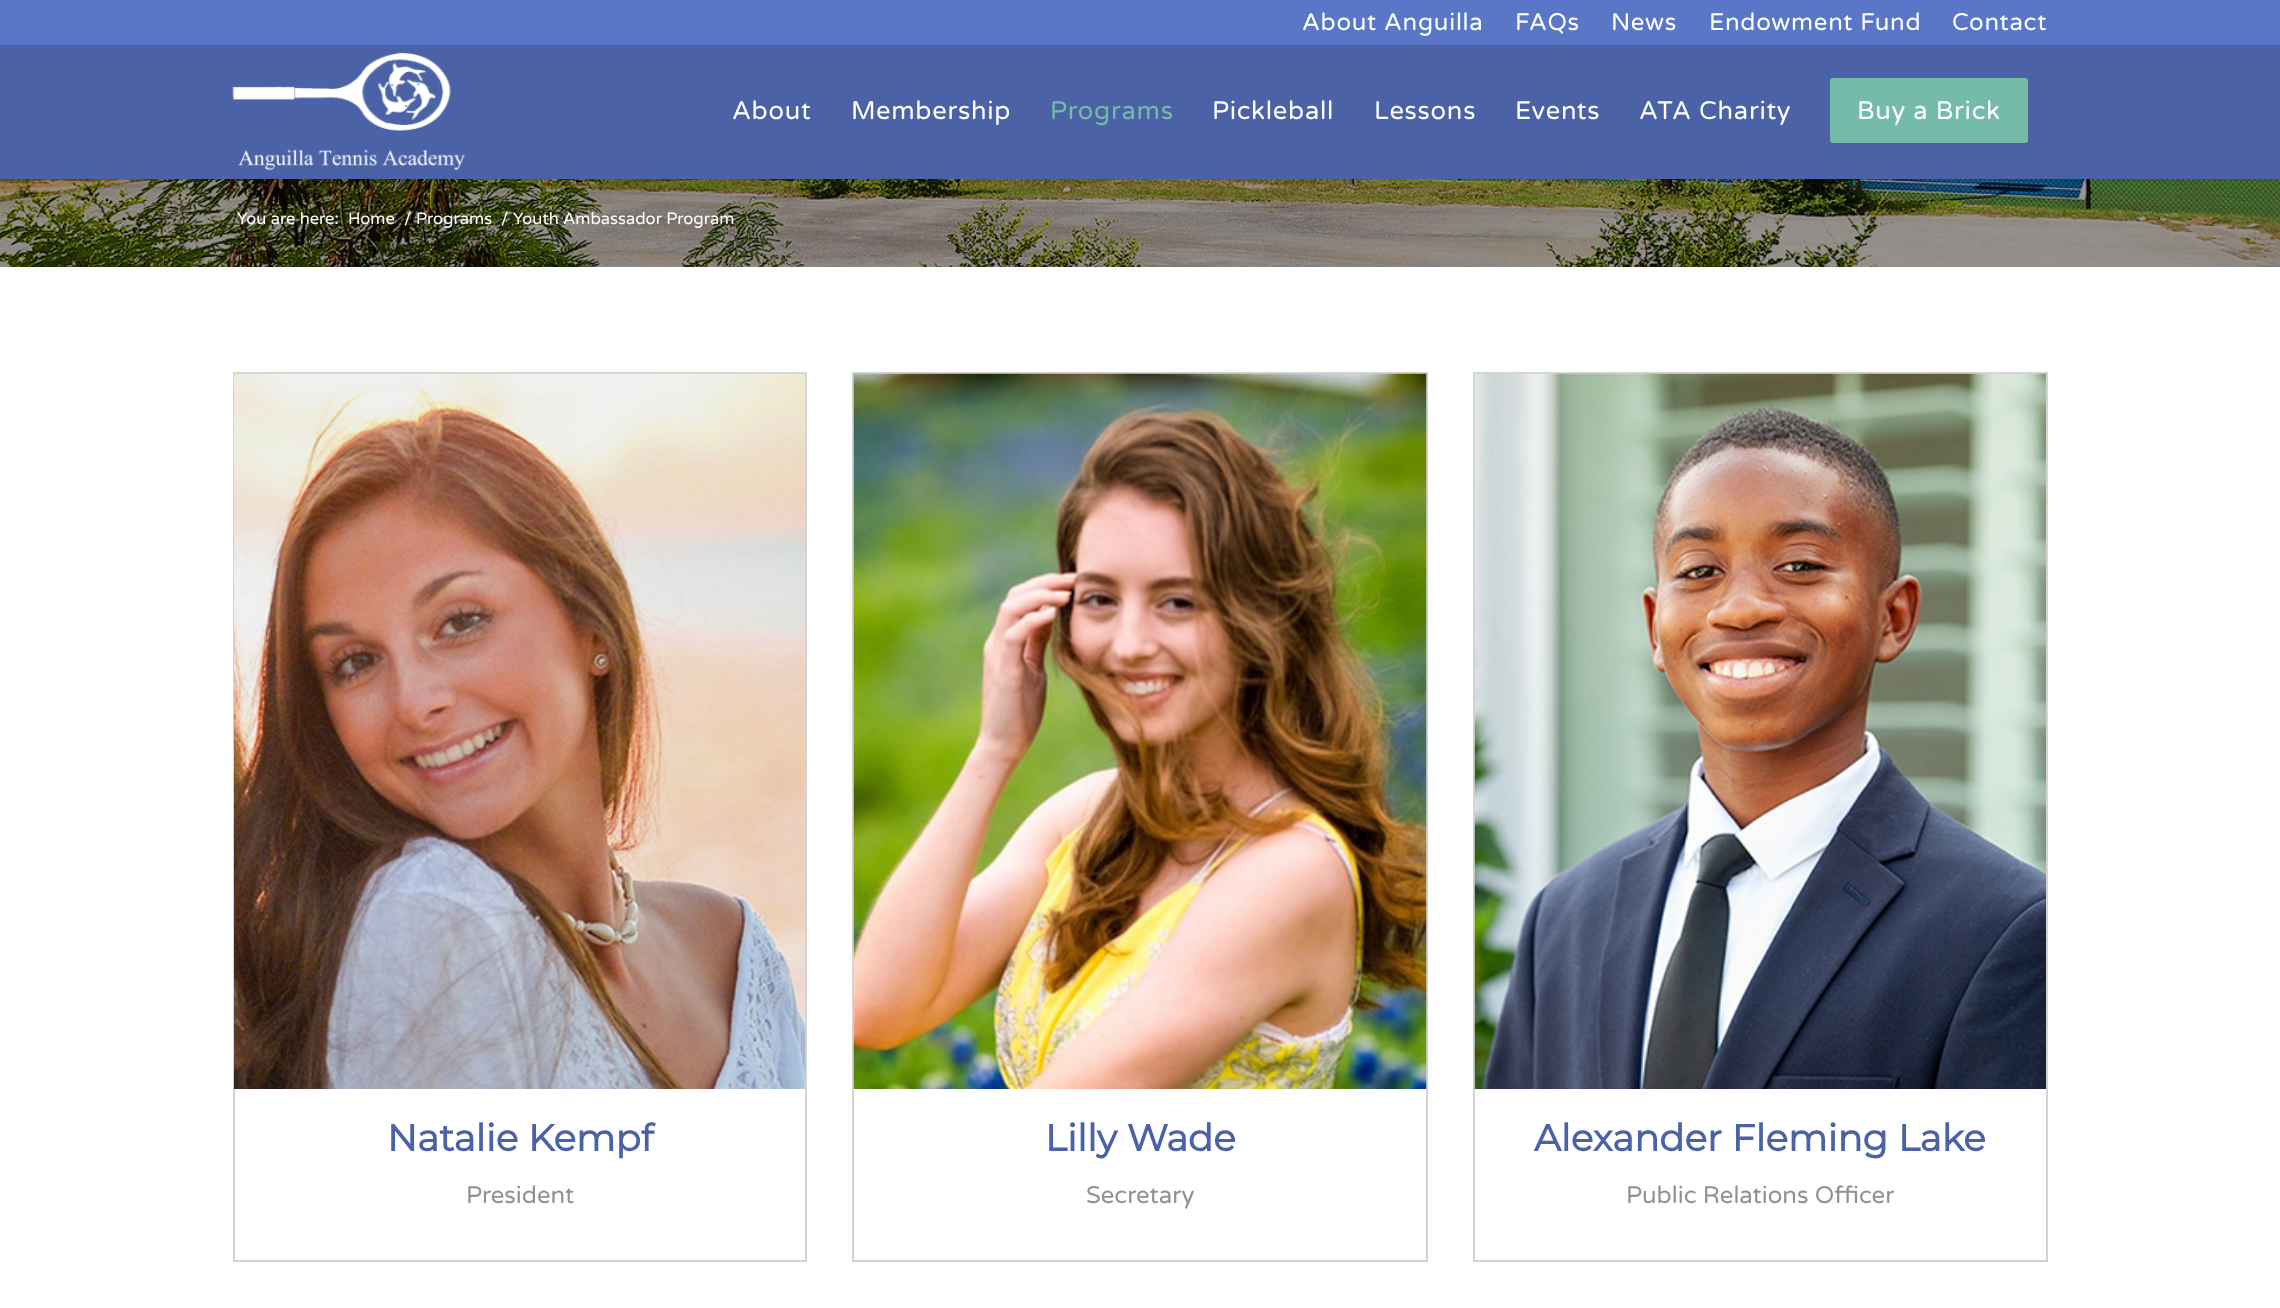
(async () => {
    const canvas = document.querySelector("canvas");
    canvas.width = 2280;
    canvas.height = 1308;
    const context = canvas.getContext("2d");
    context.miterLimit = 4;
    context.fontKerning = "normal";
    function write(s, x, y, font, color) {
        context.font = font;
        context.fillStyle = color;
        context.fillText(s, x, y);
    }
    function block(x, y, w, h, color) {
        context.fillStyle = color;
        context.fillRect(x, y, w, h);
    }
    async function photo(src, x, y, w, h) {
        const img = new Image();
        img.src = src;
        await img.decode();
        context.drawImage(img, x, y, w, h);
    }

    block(0, 0, 2280, 1308, "rgb(255, 255, 255)");
    await photo("media/2.png", 0, 179, 2280, 88);
    context.fillStyle = "rgba(0, 0, 0, 0.1)";
    context.filter = "blur(1.5px)";
    context.beginPath();
    context.rect(-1, -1, 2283, 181);
    context.fill();
    context.filter = "none";
    block(0, 0, 2280, 45, "rgb(90, 119, 199)");
    context.letterSpacing = "0.75px";
    write("About Anguilla", 1302, 30, "24px Varela Round", "rgb(255, 255, 255)");
    write("FAQs", 1515, 30, "24px Varela Round", "rgb(255, 255, 255)");
    write("News", 1611, 30, "24px Varela Round", "rgb(255, 255, 255)");
    write("Endowment Fund", 1709, 30, "24px Varela Round", "rgb(255, 255, 255)");
    write("Contact", 1952, 30, "24px Varela Round", "rgb(255, 255, 255)");
    block(0, 45, 2280, 134, "rgb(75, 98, 166)");
    await photo("media/1.png", 232, 52, 233, 118);
    write("About", 732, 119, "25.5px Varela Round", "rgb(255, 255, 255)");
    write("Membership", 851, 119, "25.5px Varela Round", "rgb(255, 255, 255)");
    write("Programs", 1050, 119, "25.5px Varela Round", "rgb(116, 187, 168)");
    write("Pickleball", 1212, 119, "25.5px Varela Round", "rgb(255, 255, 255)");
    write("Lessons", 1374, 119, "25.5px Varela Round", "rgb(255, 255, 255)");
    write("Events", 1515, 119, "25.5px Varela Round", "rgb(255, 255, 255)");
    write("ATA Charity", 1639, 119, "25.5px Varela Round", "rgb(255, 255, 255)");
    context.fillStyle = "rgb(116, 187, 168)";
    context.beginPath();
    context.roundRect(1831.5, 79.5, 195, 62, 1.5);
    context.fill();
    context.strokeStyle = "rgb(116, 187, 168)";
    context.lineWidth = 3;
    context.stroke();
    write("Buy a Brick", 1857, 119, "25.5px Varela Round", "rgb(255, 255, 255)");
    context.letterSpacing = "0px";
    write("You are here:", 237, 224, "16.5px Varela Round", "rgb(255, 255, 255)");
    write("Home", 348, 224, "16.5px Varela Round", "rgb(255, 255, 255)");
    write("/", 404, 224, "16.5px Varela Round", "rgb(255, 255, 255)");
    write("Programs", 416, 224, "16.5px Varela Round", "rgb(255, 255, 255)");
    write("/", 501, 224, "16.5px Varela Round", "rgb(255, 255, 255)");
    write("Youth Ambassador Program", 513, 224, "16.5px Varela Round", "rgb(255, 255, 255)");
    context.strokeStyle = "rgb(211, 211, 211)";
    context.lineWidth = 2;
    context.strokeRect(234, 373, 572, 888);
    await photo("media/3.png", 234, 373, 572, 716);
    write("Natalie Kempf", 387, 1151, "bold 37.25px Montserrat", "rgb(75, 98, 166)");
    write("President", 466, 1203, "24px Varela Round", "rgb(145, 145, 145)");
    context.strokeRect(853, 373, 574, 888);
    await photo("media/4.png", 853, 373, 574, 716);
    write("Lilly Wade", 1045, 1151, "bold 37.25px Montserrat", "rgb(75, 98, 166)");
    write("Secretary", 1086, 1203, "24px Varela Round", "rgb(145, 145, 145)");
    context.strokeRect(1474, 373, 573, 888);
    await photo("media/5.png", 1474, 373, 572, 716);
    write("Alexander Fleming Lake", 1534, 1151, "bold 37.25px Montserrat", "rgb(75, 98, 166)");
    write("Public Relations Officer", 1626, 1203, "24px Varela Round", "rgb(145, 145, 145)");
})();
